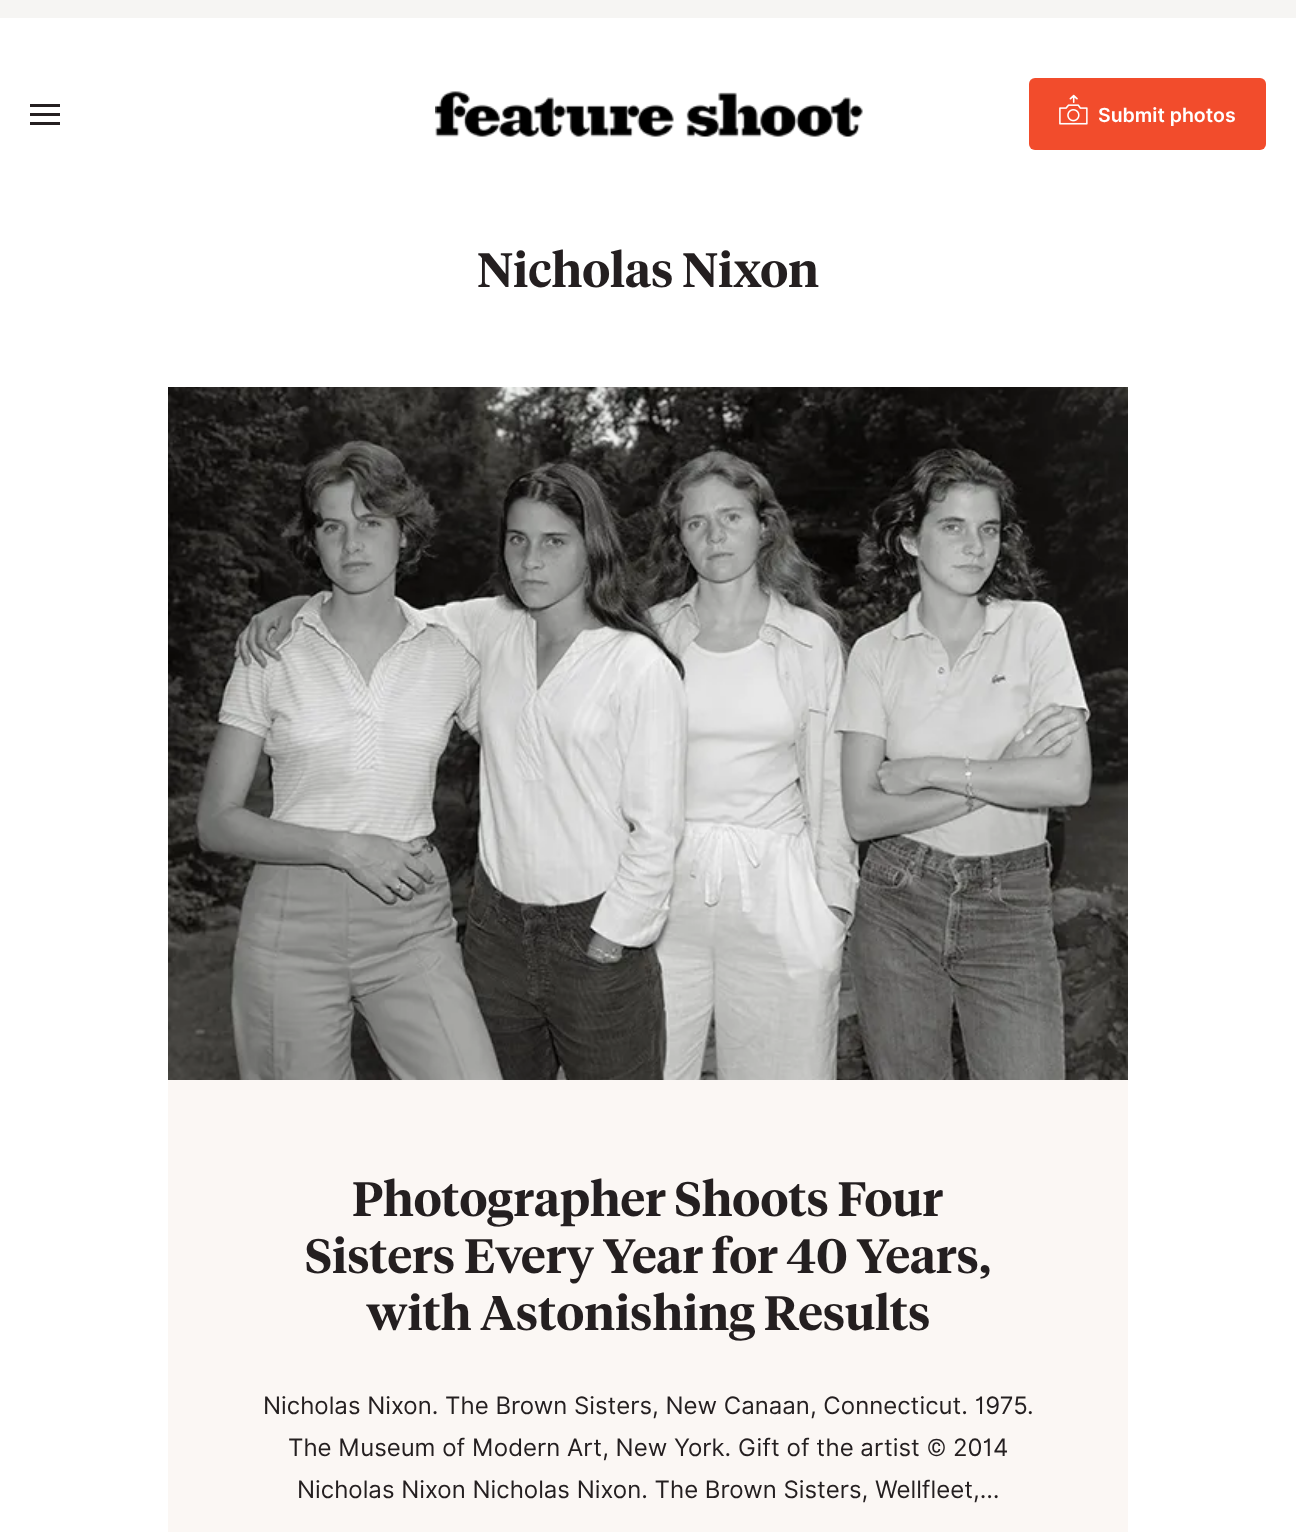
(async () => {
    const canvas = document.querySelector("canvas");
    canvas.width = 1296;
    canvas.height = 1532;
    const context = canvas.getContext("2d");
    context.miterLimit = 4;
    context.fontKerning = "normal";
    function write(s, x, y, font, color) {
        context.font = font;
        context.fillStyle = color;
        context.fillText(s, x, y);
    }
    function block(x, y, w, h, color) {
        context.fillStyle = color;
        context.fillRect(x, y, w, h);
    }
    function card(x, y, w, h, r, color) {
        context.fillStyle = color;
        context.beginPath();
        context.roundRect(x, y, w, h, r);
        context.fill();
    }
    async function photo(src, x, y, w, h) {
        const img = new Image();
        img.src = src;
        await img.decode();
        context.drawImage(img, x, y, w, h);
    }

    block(0, 0, 1296, 1532, "rgb(255, 255, 255)");
    block(0, 0, 1296, 18, "rgb(246, 245, 243)");
    block(30, 113, 30, 3, "rgb(36, 31, 32)");
    block(30, 104, 30, 3, "rgb(36, 31, 32)");
    block(30, 122, 30, 3, "rgb(36, 31, 32)");
    await photo("media/1.png", 435, 91, 428, 46);
    card(1029, 78, 237, 72, 6, "rgb(242, 76, 44)");
    await photo("media/2.png", 1059, 94, 29, 31);
    write("Submit photos", 1098, 122, "600 19.5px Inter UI", "rgb(255, 255, 255)");
    write("Nicholas Nixon", 477, 287, "600 48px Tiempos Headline", "rgb(36, 31, 32)");
    await photo("media/3.png", 168, 387, 960, 693);
    block(168, 1080, 960, 452, "rgb(251, 247, 244)");
    write("Photographer Shoots Four", 352, 1216, "600 48px Tiempos Headline", "rgb(36, 31, 32)");
    write("Sisters Every Year for 40 Years,", 305, 1273, "600 48px Tiempos Headline", "rgb(36, 31, 32)");
    write("with Astonishing Results", 366, 1330, "600 48px Tiempos Headline", "rgb(36, 31, 32)");
    write("Nicholas Nixon. The Brown Sisters, New Canaan, Connecticut. 1975.", 263, 1414, "24px Inter UI", "rgb(36, 31, 32)");
    write("The Museum of Modern Art, New York. Gift of the artist © 2014", 288, 1456, "24px Inter UI", "rgb(36, 31, 32)");
    write("Nicholas Nixon Nicholas Nixon. The Brown Sisters, Wellfleet,…", 297, 1498, "24px Inter UI", "rgb(36, 31, 32)");
})();
